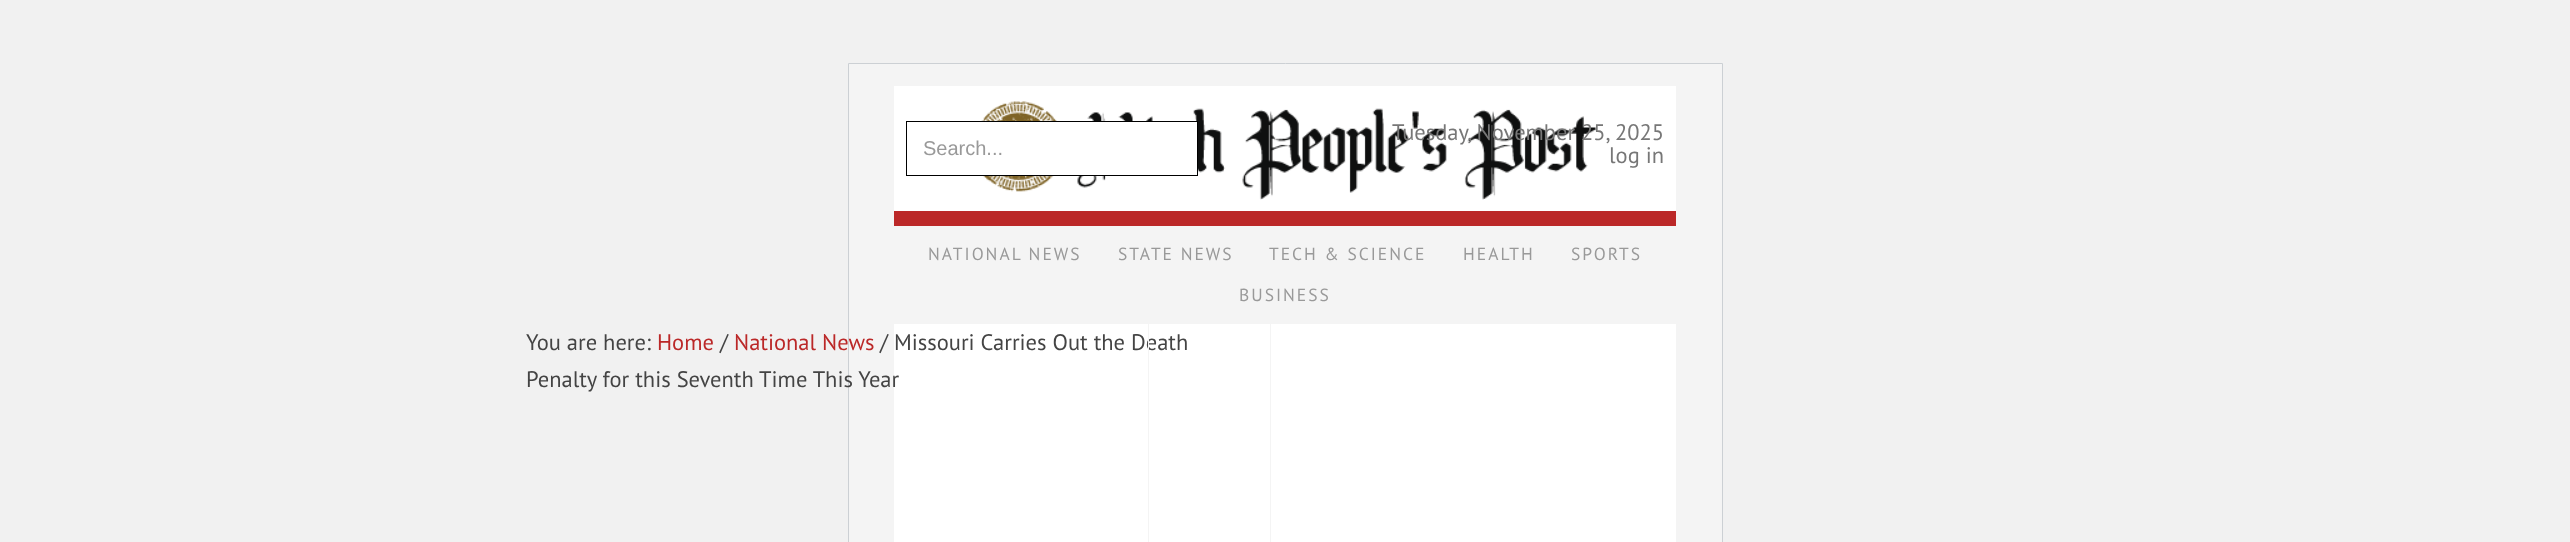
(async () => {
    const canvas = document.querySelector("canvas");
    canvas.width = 2570;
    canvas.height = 542;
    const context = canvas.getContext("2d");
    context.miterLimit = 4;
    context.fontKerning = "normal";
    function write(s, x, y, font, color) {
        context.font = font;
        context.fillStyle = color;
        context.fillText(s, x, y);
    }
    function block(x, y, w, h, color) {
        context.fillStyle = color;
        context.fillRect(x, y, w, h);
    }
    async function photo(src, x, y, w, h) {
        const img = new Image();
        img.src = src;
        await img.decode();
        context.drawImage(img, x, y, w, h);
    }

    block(0, 0, 2570, 542, "rgb(241, 241, 241)");
    context.fillStyle = "rgb(244, 244, 244)";
    context.beginPath();
    context.rect(848.5, 63.5, 874, 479);
    context.fill();
    context.strokeStyle = "rgb(204, 208, 212)";
    context.stroke();
    block(894, 86, 782, 125, "rgb(255, 255, 255)");
    await photo("media/1.png", 981, 101, 616, 99);
    block(894, 211, 782, 15, "rgb(187, 40, 40)");
    block(981, 122, 216, 53, "rgb(255, 255, 255)");
    context.strokeStyle = "rgb(0, 0, 0)";
    context.strokeRect(906.5, 121.5, 291, 54);
    write("Search...", 923, 155, "20px Liberation Sans", "rgb(153, 153, 153)");
    write("Tuesday, November 25, 2025", 1392, 140, "22.5px PT Sans", "rgb(119, 119, 119)");
    write("log in", 1609, 163, "22.5px PT Sans", "rgb(119, 119, 119)");
    context.letterSpacing = "2px";
    write("NATIONAL NEWS", 928, 260, "17.5px PT Sans", "rgb(153, 153, 153)");
    write("STATE NEWS", 1118, 260, "17.5px PT Sans", "rgb(153, 153, 153)");
    write("TECH & SCIENCE", 1269, 260, "17.5px PT Sans", "rgb(153, 153, 153)");
    write("HEALTH", 1463, 260, "17.5px PT Sans", "rgb(153, 153, 153)");
    write("SPORTS", 1571, 260, "17.5px PT Sans", "rgb(153, 153, 153)");
    write("BUSINESS", 1239, 301, "17.5px PT Sans", "rgb(153, 153, 153)");
    block(894, 324, 782, 218, "rgb(255, 255, 255)");
    context.letterSpacing = "0px";
    write("/ Missouri Carries Out the Death", 880, 350, "22.5px PT Sans", "rgb(68, 68, 68)");
    block(1148, 324, 1, 218, "rgb(244, 244, 244)");
    write("You are here:", 526, 350, "22.5px PT Sans", "rgb(68, 68, 68)");
    write("Home", 657, 350, "22.5px PT Sans", "rgb(187, 40, 40)");
    write("/", 720, 350, "22.5px PT Sans", "rgb(68, 68, 68)");
    write("National News", 734, 350, "22.5px PT Sans", "rgb(187, 40, 40)");
    write("Penalty for this Seventh Time This Year", 526, 387, "22.5px PT Sans", "rgb(68, 68, 68)");
    block(1270, 324, 1, 218, "rgb(244, 244, 244)");
})();
